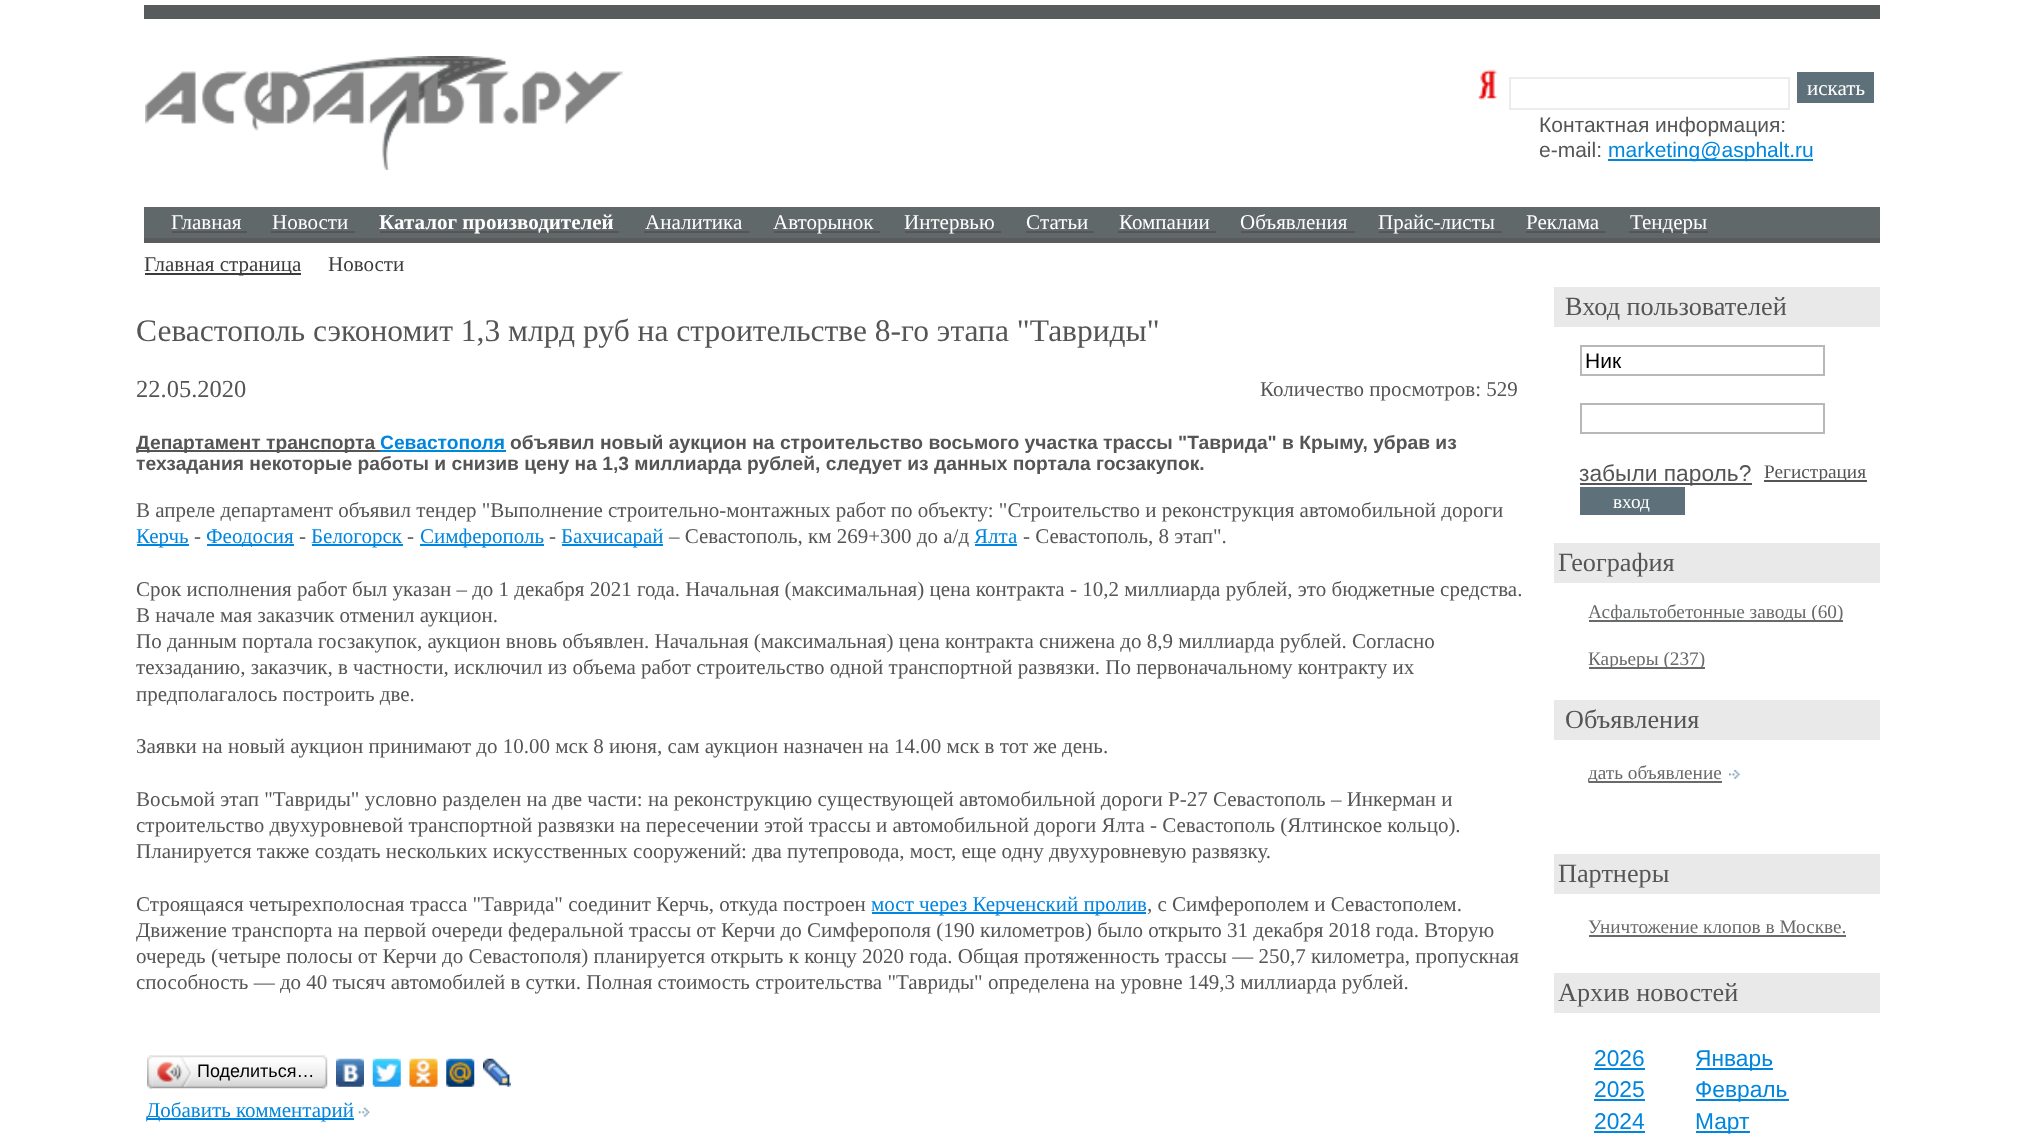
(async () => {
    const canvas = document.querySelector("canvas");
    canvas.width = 2020;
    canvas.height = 1141;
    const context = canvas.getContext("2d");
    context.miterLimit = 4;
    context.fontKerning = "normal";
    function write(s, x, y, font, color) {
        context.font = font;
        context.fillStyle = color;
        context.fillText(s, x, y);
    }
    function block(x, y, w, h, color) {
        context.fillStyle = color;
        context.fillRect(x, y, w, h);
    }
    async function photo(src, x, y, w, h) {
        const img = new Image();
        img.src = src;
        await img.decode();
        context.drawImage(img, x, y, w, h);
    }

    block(0, 0, 2020, 1141, "rgb(255, 255, 255)");
    block(144, 5, 1736, 14, "rgb(87, 91, 92)");
    await photo("media/1.png", 145, 56, 478, 114);
    await photo("media/2.png", 1478, 69, 19, 31);
    context.strokeStyle = "rgb(236, 236, 236)";
    context.lineWidth = 2;
    context.strokeRect(1510, 78, 279, 31);
    block(1797, 72, 77, 31, "rgb(94, 113, 122)");
    write("искать", 1807, 95, "21px Liberation Serif", "rgb(255, 255, 255)");
    write("Контактная информация:", 1539, 132, "21px Liberation Sans", "rgb(85, 85, 85)");
    write("e-mail:", 1539, 157, "21px Liberation Sans", "rgb(85, 85, 85)");
    block(1608, 159, 205, 2, "rgb(0, 134, 223)");
    write("marketing@asphalt.ru", 1608, 157, "21px Liberation Sans", "rgb(0, 134, 223)");
    block(144, 207, 1736, 31, "rgb(96, 104, 105)");
    block(144, 238, 1736, 5, "rgb(90, 91, 91)");
    write("Главная", 171, 229, "21px Liberation Serif", "rgb(255, 255, 255)");
    block(172, 231, 75, 2, "rgb(85, 85, 85)");
    write("Новости", 272, 229, "21px Liberation Serif", "rgb(255, 255, 255)");
    block(271, 231, 84, 2, "rgb(85, 85, 85)");
    block(380, 231, 239, 2, "rgb(85, 85, 85)");
    write("Каталог производителей", 379, 229, "bold 21px Liberation Serif", "rgb(255, 255, 255)");
    write("Аналитика", 645, 229, "21px Liberation Serif", "rgb(255, 255, 255)");
    block(644, 231, 105, 2, "rgb(85, 85, 85)");
    block(774, 231, 99, 2, "rgb(85, 85, 85)");
    write("Авторынок", 773, 229, "21px Liberation Serif", "rgb(255, 255, 255)");
    block(873, 231, 7, 2, "rgb(85, 85, 85)");
    block(905, 231, 96, 2, "rgb(85, 85, 85)");
    write("Интервью", 904, 229, "21px Liberation Serif", "rgb(255, 255, 255)");
    write("Cтатьи", 1026, 229, "21px Liberation Serif", "rgb(255, 255, 255)");
    block(1026, 231, 68, 2, "rgb(85, 85, 85)");
    write("Компании", 1119, 229, "21px Liberation Serif", "rgb(255, 255, 255)");
    block(1118, 231, 98, 2, "rgb(85, 85, 85)");
    write("Объявления", 1240, 229, "21px Liberation Serif", "rgb(255, 255, 255)");
    block(1241, 231, 114, 2, "rgb(85, 85, 85)");
    block(1379, 231, 123, 2, "rgb(85, 85, 85)");
    write("Прайс-листы", 1378, 229, "21px Liberation Serif", "rgb(255, 255, 255)");
    write("Реклама", 1526, 229, "21px Liberation Serif", "rgb(255, 255, 255)");
    block(1526, 231, 79, 2, "rgb(85, 85, 85)");
    block(1629, 231, 79, 2, "rgb(85, 85, 85)");
    write("Тендеры", 1630, 229, "21px Liberation Serif", "rgb(255, 255, 255)");
    block(145, 273, 156, 2, "rgb(60, 59, 59)");
    write("Главная страница", 144, 271, "21px Liberation Serif", "rgb(60, 59, 59)");
    write("Новости", 328, 271, "21px Liberation Serif", "rgb(60, 59, 59)");
    write("Севастополь сэкономит 1,3 млрд руб на строительстве 8-го этапа \"Тавриды\"", 136, 341, "31.5px Liberation Serif", "rgb(85, 85, 85)");
    write("22.05.2020", 136, 397, "24.5px Liberation Serif", "rgb(85, 85, 85)");
    write("Количество просмотров: 529", 1260, 396, "21px Liberation Serif", "rgb(85, 85, 85)");
    block(137, 450, 243, 2, "rgb(85, 85, 85)");
    write("Департамент транспорта", 136, 449, "bold 19.25px Liberation Sans", "rgb(85, 85, 85)");
    write("Севастополя", 380, 449, "bold 19.25px Liberation Sans", "rgb(0, 134, 223)");
    block(380, 450, 126, 2, "rgb(0, 134, 223)");
    write("объявил новый аукцион на строительство восьмого участка трассы \"Таврида\" в Крыму, убрав из", 510, 449, "bold 19.25px Liberation Sans", "rgb(85, 85, 85)");
    write("техзадания некоторые работы и снизив цену на 1,3 миллиарда рублей, следует из данных портала госзакупок.", 136, 470, "bold 19.25px Liberation Sans", "rgb(85, 85, 85)");
    write("В апреле департамент объявил тендер \"Выполнение строительно-монтажных работ по объекту: \"Строительство и реконструкция автомобильной дороги", 136, 517, "21px Liberation Serif", "rgb(85, 85, 85)");
    block(137, 544, 52, 2, "rgb(0, 134, 223)");
    write("Керчь", 136, 543, "21px Liberation Serif", "rgb(0, 134, 223)");
    write("-", 194, 543, "21px Liberation Serif", "rgb(85, 85, 85)");
    block(207, 544, 87, 2, "rgb(0, 134, 223)");
    write("Феодосия", 206, 543, "21px Liberation Serif", "rgb(0, 134, 223)");
    write("-", 299, 543, "21px Liberation Serif", "rgb(85, 85, 85)");
    block(312, 544, 91, 2, "rgb(0, 134, 223)");
    write("Белогорск", 311, 543, "21px Liberation Serif", "rgb(0, 134, 223)");
    write("-", 407, 543, "21px Liberation Serif", "rgb(85, 85, 85)");
    block(420, 544, 124, 2, "rgb(0, 134, 223)");
    write("Симферополь", 420, 543, "21px Liberation Serif", "rgb(0, 134, 223)");
    write("-", 549, 543, "21px Liberation Serif", "rgb(85, 85, 85)");
    block(562, 544, 101, 2, "rgb(0, 134, 223)");
    write("Бахчисарай", 561, 543, "21px Liberation Serif", "rgb(0, 134, 223)");
    write("– Севастополь, км 269+300 до а/д", 669, 543, "21px Liberation Serif", "rgb(85, 85, 85)");
    write("Ялта", 974, 543, "21px Liberation Serif", "rgb(0, 134, 223)");
    block(975, 544, 42, 2, "rgb(0, 134, 223)");
    write("- Севастополь, 8 этап\".", 1023, 543, "21px Liberation Serif", "rgb(85, 85, 85)");
    write("Срок исполнения работ был указан – до 1 декабря 2021 года. Начальная (максимальная) цена контракта - 10,2 миллиарда рублей, это бюджетные средства.", 136, 596, "21px Liberation Serif", "rgb(85, 85, 85)");
    write("В начале мая заказчик отменил аукцион.", 136, 622, "21px Liberation Serif", "rgb(85, 85, 85)");
    write("По данным портала госзакупок, аукцион вновь объявлен. Начальная (максимальная) цена контракта снижена до 8,9 миллиарда рублей. Согласно", 136, 648, "21px Liberation Serif", "rgb(85, 85, 85)");
    write("техзаданию, заказчик, в частности, исключил из объема работ строительство одной транспортной развязки. По первоначальному контракту их", 136, 674, "21px Liberation Serif", "rgb(85, 85, 85)");
    write("предполагалось построить две.", 136, 701, "21px Liberation Serif", "rgb(85, 85, 85)");
    write("Заявки на новый аукцион принимают до 10.00 мск 8 июня, сам аукцион назначен на 14.00 мск в тот же день.", 136, 753, "21px Liberation Serif", "rgb(85, 85, 85)");
    write("Восьмой этап \"Тавриды\" условно разделен на две части: на реконструкцию существующей автомобильной дороги Р-27 Севастополь – Инкерман и", 136, 806, "21px Liberation Serif", "rgb(85, 85, 85)");
    write("строительство двухуровневой транспортной развязки на пересечении этой трассы и автомобильной дороги Ялта - Севастополь (Ялтинское кольцо).", 136, 832, "21px Liberation Serif", "rgb(85, 85, 85)");
    write("Планируется также создать нескольких искусственных сооружений: два путепровода, мост, еще одну двухуровневую развязку.", 136, 858, "21px Liberation Serif", "rgb(85, 85, 85)");
    write("Строящаяся четырехполосная трасса \"Таврида\" соединит Керчь, откуда построен", 136, 911, "21px Liberation Serif", "rgb(85, 85, 85)");
    block(872, 912, 274, 2, "rgb(0, 134, 223)");
    write("мост через Керченский пролив", 871, 911, "21px Liberation Serif", "rgb(0, 134, 223)");
    write(", с Симферополем и Севастополем.", 1147, 911, "21px Liberation Serif", "rgb(85, 85, 85)");
    write("Движение транспорта на первой очереди федеральной трассы от Керчи до Симферополя (190 километров) было открыто 31 декабря 2018 года. Вторую", 136, 937, "21px Liberation Serif", "rgb(85, 85, 85)");
    write("очередь (четыре полосы от Керчи до Севастополя) планируется открыть к концу 2020 года. Общая протяженность трассы — 250,7 километра, пропускная", 136, 963, "21px Liberation Serif", "rgb(85, 85, 85)");
    write("способность — до 40 тысяч автомобилей в сутки. Полная стоимость строительства \"Тавриды\" определена на уровне 149,3 миллиарда рублей.", 136, 989, "21px Liberation Serif", "rgb(85, 85, 85)");
    await photo("media/3.png", 152, 1055, 170, 34);
    await photo("media/4.png", 147, 1055, 6, 34);
    await photo("media/5.png", 157, 1057, 36, 30);
    write("Поделиться…", 197, 1077, "18px Liberation Sans", "rgb(0, 0, 0)");
    await photo("media/6.png", 322, 1055, 6, 34);
    await photo("media/7.png", 336, 1058, 28, 29);
    await photo("media/8.png", 372, 1058, 29, 29);
    await photo("media/9.png", 409, 1058, 29, 29);
    await photo("media/10.png", 446, 1058, 29, 29);
    await photo("media/11.png", 483, 1058, 28, 29);
    block(147, 1118, 207, 2, "rgb(0, 134, 223)");
    write("Добавить комментарий", 146, 1117, "21px Liberation Serif", "rgb(0, 134, 223)");
    await photo("media/12.png", 358, 1107, 12, 10);
    block(1554, 287, 326, 40, "rgb(233, 233, 233)");
    write("Вход пользователей", 1565, 315, "26.25px Liberation Serif", "rgb(85, 85, 85)");
    context.strokeStyle = "rgb(184, 184, 184)";
    context.strokeRect(1581, 346, 243, 29);
    write("Ник", 1585, 368, "21px Liberation Sans", "rgb(0, 0, 0)");
    context.strokeRect(1581, 404, 243, 29);
    block(1580, 483, 172, 2, "rgb(85, 85, 85)");
    write("забыли пароль?", 1579, 481, "22.75px Liberation Sans", "rgb(85, 85, 85)");
    block(1764, 480, 103, 2, "rgb(85, 85, 85)");
    write("Регистрация", 1764, 478, "19.25px Liberation Serif", "rgb(85, 85, 85)");
    block(1580, 487, 105, 28, "rgb(94, 113, 122)");
    write("вход", 1613, 508, "19.25px Liberation Serif", "rgb(255, 255, 255)");
    block(1554, 543, 326, 40, "rgb(233, 233, 233)");
    write("География", 1558, 571, "26.25px Liberation Serif", "rgb(85, 85, 85)");
    block(1589, 620, 254, 2, "rgb(105, 107, 106)");
    write("Асфальтобетонные заводы (60)", 1588, 618, "19.25px Liberation Serif", "rgb(105, 107, 106)");
    block(1589, 667, 116, 2, "rgb(105, 107, 106)");
    write("Карьеры (237)", 1588, 665, "19.25px Liberation Serif", "rgb(105, 107, 106)");
    block(1554, 700, 326, 40, "rgb(233, 233, 233)");
    write("Объявления", 1565, 728, "26.25px Liberation Serif", "rgb(85, 85, 85)");
    block(1589, 781, 133, 2, "rgb(105, 107, 106)");
    write("дать объявление", 1588, 779, "19.25px Liberation Serif", "rgb(105, 107, 106)");
    await photo("media/13.png", 1729, 770, 11, 9);
    block(1554, 854, 326, 40, "rgb(233, 233, 233)");
    write("Партнеры", 1558, 882, "26.25px Liberation Serif", "rgb(85, 85, 85)");
    write("Уничтожение клопов в Москве.", 1588, 933, "19.25px Liberation Serif", "rgb(105, 107, 106)");
    block(1589, 935, 257, 2, "rgb(105, 107, 106)");
    block(1554, 973, 326, 40, "rgb(233, 233, 233)");
    write("Архив новостей", 1558, 1001, "26.25px Liberation Serif", "rgb(85, 85, 85)");
    write("2026", 1594, 1066, "22.75px Liberation Sans", "rgb(0, 134, 223)");
    block(1594, 1068, 51, 2, "rgb(0, 134, 223)");
    write("2025", 1594, 1097, "22.75px Liberation Sans", "rgb(0, 134, 223)");
    block(1594, 1099, 51, 2, "rgb(0, 134, 223)");
    write("2024", 1594, 1129, "22.75px Liberation Sans", "rgb(0, 134, 223)");
    block(1594, 1131, 51, 2, "rgb(0, 134, 223)");
    block(1696, 1068, 77, 2, "rgb(0, 134, 223)");
    write("Январь", 1695, 1066, "22.75px Liberation Sans", "rgb(0, 134, 223)");
    block(1696, 1099, 93, 2, "rgb(0, 134, 223)");
    write("Февраль", 1695, 1097, "22.75px Liberation Sans", "rgb(0, 134, 223)");
    block(1696, 1131, 54, 2, "rgb(0, 134, 223)");
    write("Март", 1695, 1129, "22.75px Liberation Sans", "rgb(0, 134, 223)");
})();
